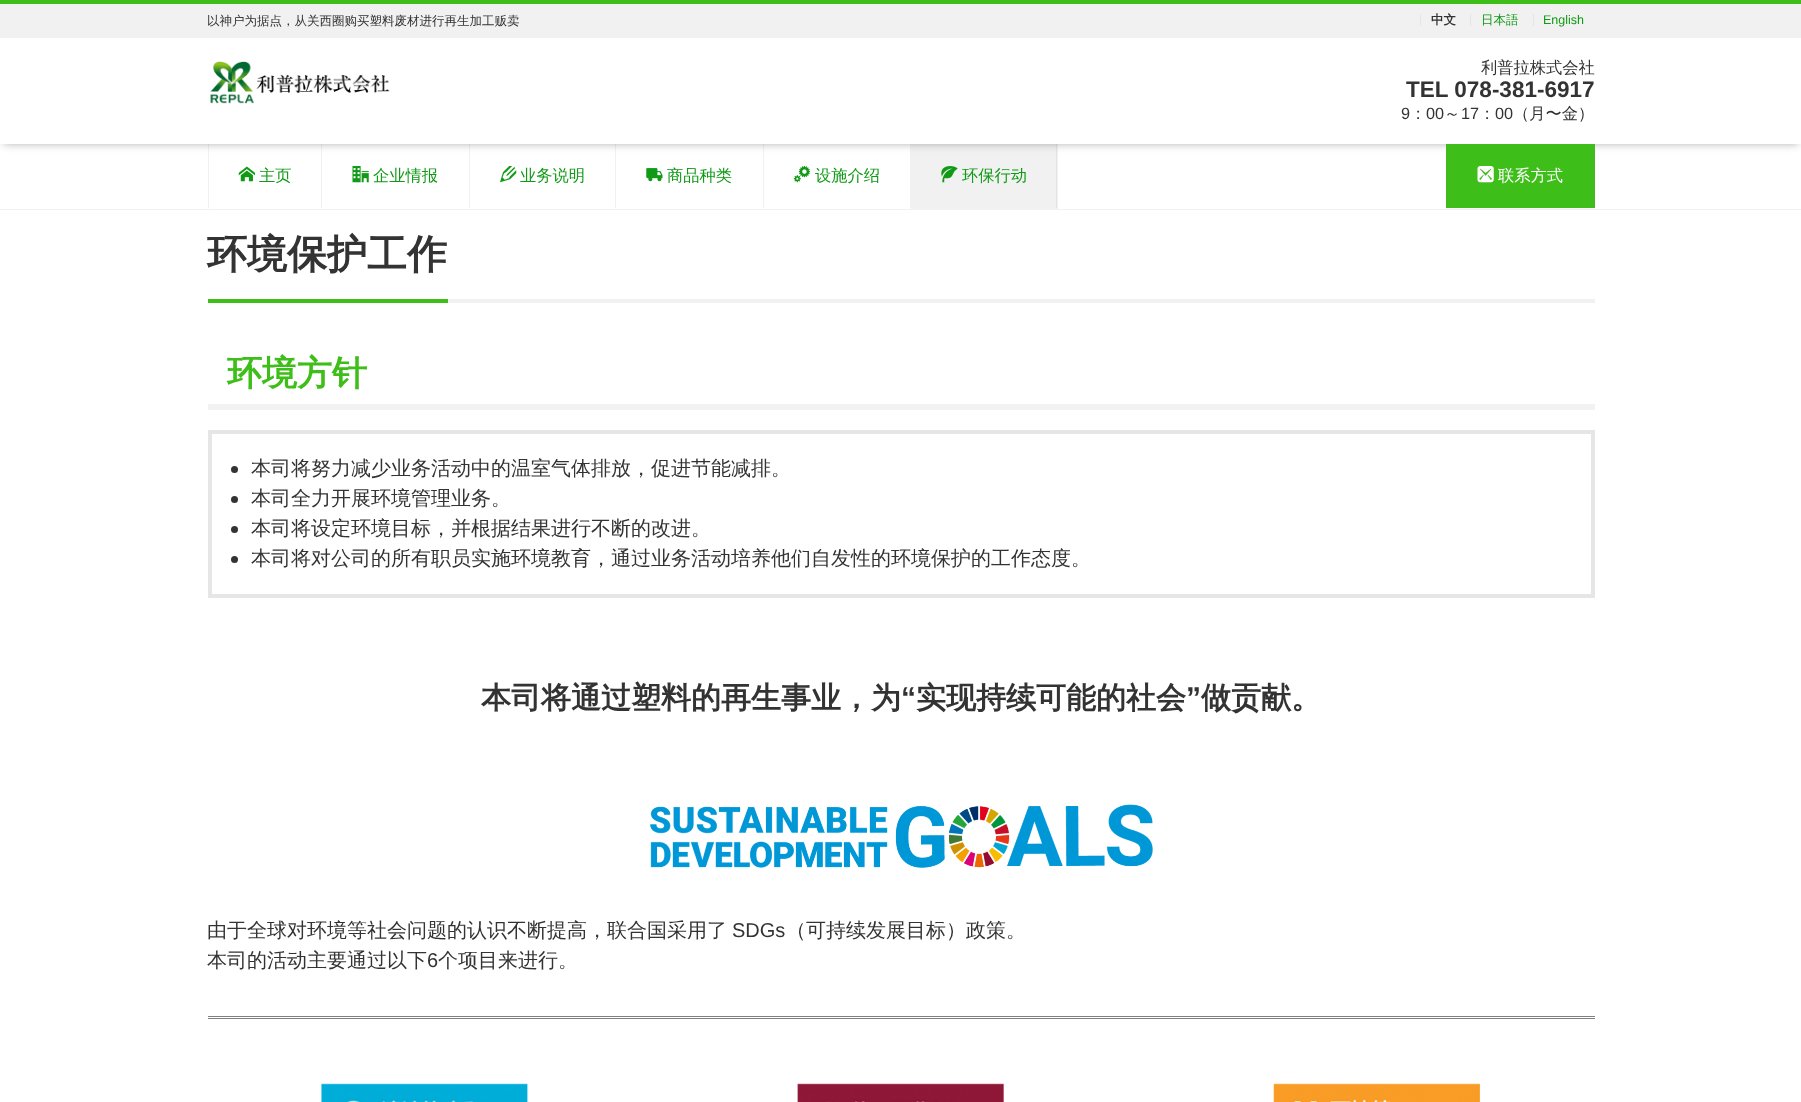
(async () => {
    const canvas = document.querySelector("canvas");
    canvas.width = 1801;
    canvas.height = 1102;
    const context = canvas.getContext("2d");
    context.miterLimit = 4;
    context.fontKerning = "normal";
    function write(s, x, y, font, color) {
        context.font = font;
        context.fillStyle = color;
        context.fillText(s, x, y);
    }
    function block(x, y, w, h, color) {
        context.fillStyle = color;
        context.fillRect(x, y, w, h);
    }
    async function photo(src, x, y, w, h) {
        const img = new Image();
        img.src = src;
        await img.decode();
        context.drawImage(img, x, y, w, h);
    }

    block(0, 0, 1801, 1102, "rgb(255, 255, 255)");
    context.save();
    context.beginPath();
    context.moveTo(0, 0);
    context.lineTo(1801, 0);
    context.lineTo(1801, 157);
    context.lineTo(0, 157);
    context.closePath();
    context.moveTo(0, 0);
    context.lineTo(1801, 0);
    context.lineTo(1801, 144);
    context.lineTo(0, 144);
    context.closePath();
    context.clip("evenodd");
    context.fillStyle = "rgba(0, 0, 0, 0.3)";
    context.filter = "blur(4px)";
    context.beginPath();
    context.rect(4, 8, 1794, 136);
    context.fill();
    context.filter = "none";
    context.restore();
    block(0, 0, 1801, 4, "rgb(62, 190, 24)");
    block(0, 4, 1801, 34, "rgb(241, 241, 241)");
    write("以神户为据点，从关西圈购买塑料废材进行再生加工贩卖", 207, 25, "500 12.5px WenQuanYi Zen Hei", "rgb(51, 51, 51)");
    block(1420, 14, 1, 12, "rgb(229, 229, 229)");
    write("中文", 1431, 24, "bold 12.5px WenQuanYi Zen Hei", "rgb(51, 51, 51)");
    block(1470, 14, 1, 12, "rgb(229, 229, 229)");
    write("日本語", 1481, 24, "500 12.5px WenQuanYi Zen Hei", "rgb(17, 154, 22)");
    block(1533, 14, 1, 12, "rgb(229, 229, 229)");
    write("English", 1543, 24, "12.5px Liberation Sans", "rgb(17, 154, 22)");
    await photo("media/1.png", 210, 61, 180, 43);
    write("利普拉株式会社", 1481, 73, "500 16.25px WenQuanYi Zen Hei", "rgb(51, 51, 51)");
    write("TEL 078-381-6917", 1406, 97, "bold 22.5px Liberation Sans", "rgb(51, 51, 51)");
    write("9", 1401, 119, "16.25px Liberation Sans", "rgb(51, 51, 51)");
    write("：", 1410, 119, "500 16.25px WenQuanYi Zen Hei", "rgb(51, 51, 51)");
    write("00", 1426, 119, "16.25px Liberation Sans", "rgb(51, 51, 51)");
    write("～", 1444, 119, "500 16.25px WenQuanYi Zen Hei", "rgb(51, 51, 51)");
    write("17", 1461, 119, "16.25px Liberation Sans", "rgb(51, 51, 51)");
    write("：", 1479, 119, "500 16.25px WenQuanYi Zen Hei", "rgb(51, 51, 51)");
    write("00", 1495, 119, "16.25px Liberation Sans", "rgb(51, 51, 51)");
    write("（月〜金）", 1513, 119, "500 16.25px WenQuanYi Zen Hei", "rgb(51, 51, 51)");
    block(0, 209, 1801, 1, "rgb(241, 241, 241)");
    context.fillStyle = "rgba(119, 119, 119, 0.1)";
    context.beginPath();
    context.moveTo(208, 209);
    context.lineTo(208, 144);
    context.lineTo(209, 144);
    context.lineTo(209, 208);
    context.closePath();
    context.fill();
    block(321, 144, 1, 64, "rgba(119, 119, 119, 0.1)");
    await photo("media/2.png", 238, 166, 17, 16);
    write("主页", 259, 181, "500 16.25px WenQuanYi Zen Hei", "rgb(17, 154, 22)");
    block(469, 144, 1, 64, "rgba(119, 119, 119, 0.1)");
    await photo("media/3.png", 352, 166, 17, 17);
    write("企业情报", 373, 181, "500 16.25px WenQuanYi Zen Hei", "rgb(17, 154, 22)");
    block(615, 144, 1, 64, "rgba(119, 119, 119, 0.1)");
    await photo("media/4.png", 500, 166, 17, 17);
    write("业务说明", 520, 181, "500 16.25px WenQuanYi Zen Hei", "rgb(17, 154, 22)");
    block(763, 144, 1, 64, "rgba(119, 119, 119, 0.1)");
    await photo("media/5.png", 646, 168, 17, 14);
    write("商品种类", 667, 181, "500 16.25px WenQuanYi Zen Hei", "rgb(17, 154, 22)");
    block(910, 144, 1, 64, "rgba(119, 119, 119, 0.1)");
    await photo("media/6.png", 793, 166, 17, 17);
    write("设施介绍", 815, 181, "500 16.25px WenQuanYi Zen Hei", "rgb(17, 154, 22)");
    block(911, 144, 147, 65, "rgba(119, 119, 119, 0.1)");
    block(1056, 144, 1, 64, "rgba(119, 119, 119, 0.1)");
    await photo("media/7.png", 941, 166, 17, 17);
    write("环保行动", 962, 181, "500 16.25px WenQuanYi Zen Hei", "rgb(17, 154, 22)");
    block(1447, 144, 147, 64, "rgb(62, 190, 24)");
    block(1594, 144, 1, 64, "rgb(68, 183, 34)");
    block(1446, 144, 1, 64, "rgb(68, 183, 34)");
    await photo("media/8.png", 1477, 166, 17, 17);
    write("联系方式", 1498, 181, "500 16.25px WenQuanYi Zen Hei", "rgb(255, 255, 255)");
    block(448, 299, 1147, 4, "rgb(241, 241, 241)");
    block(208, 299, 240, 4, "rgb(62, 190, 24)");
    write("环境保护工作", 207, 268, "bold 40px WenQuanYi Zen Hei", "rgb(51, 51, 51)");
    block(208, 404, 1387, 6, "rgb(242, 242, 242)");
    write("环境方针", 227, 385, "bold 35px WenQuanYi Zen Hei", "rgb(62, 190, 24)");
    context.strokeStyle = "rgb(230, 230, 230)";
    context.lineWidth = 4;
    context.strokeRect(210, 432, 1383, 164);
    context.fillStyle = "rgb(51, 51, 51)";
    context.beginPath();
    context.arc(234.5, 469.5, 3.5, 0, Math.PI * 2);
    context.fill();
    write("本司将努力减少业务活动中的温室气体排放，促进节能减排。", 251, 475, "500 20px WenQuanYi Zen Hei", "rgb(51, 51, 51)");
    context.beginPath();
    context.arc(234.5, 499.5, 3.5, 0, Math.PI * 2);
    context.fill();
    write("本司全力开展环境管理业务。", 251, 505, "500 20px WenQuanYi Zen Hei", "rgb(51, 51, 51)");
    context.beginPath();
    context.arc(234.5, 529.5, 3.5, 0, Math.PI * 2);
    context.fill();
    write("本司将设定环境目标，并根据结果进行不断的改进。", 251, 535, "500 20px WenQuanYi Zen Hei", "rgb(51, 51, 51)");
    context.beginPath();
    context.arc(234.5, 559.5, 3.5, 0, Math.PI * 2);
    context.fill();
    write("本司将对公司的所有职员实施环境教育，通过业务活动培养他们自发性的环境保护的工作态度。", 251, 565, "500 20px WenQuanYi Zen Hei", "rgb(51, 51, 51)");
    write("本司将通过塑料的再生事业，为", 481, 708, "bold 30px WenQuanYi Zen Hei", "rgb(51, 51, 51)");
    write("“", 901, 708, "bold 30px Liberation Sans", "rgb(51, 51, 51)");
    write("实现持续可能的社会", 916, 708, "bold 30px WenQuanYi Zen Hei", "rgb(51, 51, 51)");
    write("”", 1186, 708, "bold 30px Liberation Sans", "rgb(51, 51, 51)");
    write("做贡献。", 1201, 708, "bold 30px WenQuanYi Zen Hei", "rgb(51, 51, 51)");
    await photo("media/9.png", 650, 804, 503, 64);
    write("由于全球对环境等社会问题的认识不断提高，联合国采用了", 207, 937, "500 20px WenQuanYi Zen Hei", "rgb(51, 51, 51)");
    write("SDGs", 732, 937, "20px Liberation Sans", "rgb(51, 51, 51)");
    write("（可持续发展目标）政策。", 786, 937, "500 20px WenQuanYi Zen Hei", "rgb(51, 51, 51)");
    write("本司的活动主要通过以下", 207, 967, "500 20px WenQuanYi Zen Hei", "rgb(51, 51, 51)");
    write("6", 427, 967, "20px Liberation Sans", "rgb(51, 51, 51)");
    write("个项目来进行。", 438, 967, "500 20px WenQuanYi Zen Hei", "rgb(51, 51, 51)");
    block(208, 1016, 1387, 1, "rgb(128, 128, 128)");
    block(208, 1018, 1387, 1, "rgb(128, 128, 128)");
    await photo("media/10.png", 321, 1083, 207, 19);
    await photo("media/11.png", 797, 1083, 207, 19);
    await photo("media/12.png", 1273, 1083, 207, 19);
})();
